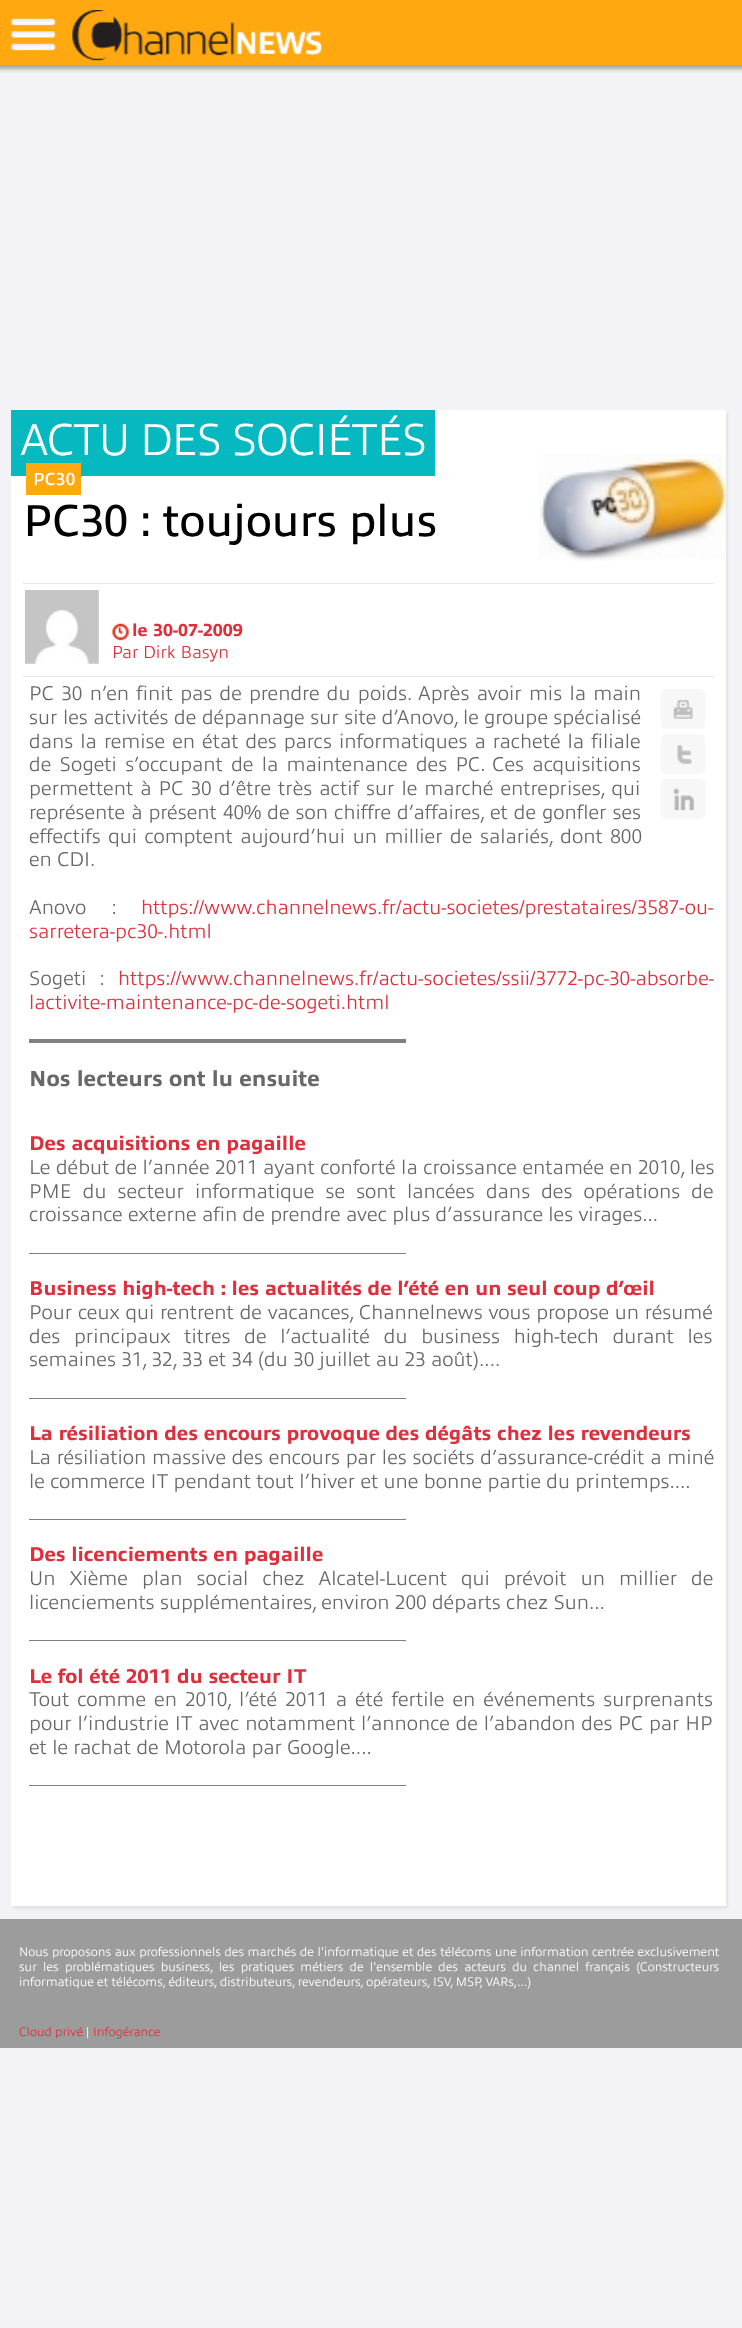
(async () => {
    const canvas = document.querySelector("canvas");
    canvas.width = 742;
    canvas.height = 2328;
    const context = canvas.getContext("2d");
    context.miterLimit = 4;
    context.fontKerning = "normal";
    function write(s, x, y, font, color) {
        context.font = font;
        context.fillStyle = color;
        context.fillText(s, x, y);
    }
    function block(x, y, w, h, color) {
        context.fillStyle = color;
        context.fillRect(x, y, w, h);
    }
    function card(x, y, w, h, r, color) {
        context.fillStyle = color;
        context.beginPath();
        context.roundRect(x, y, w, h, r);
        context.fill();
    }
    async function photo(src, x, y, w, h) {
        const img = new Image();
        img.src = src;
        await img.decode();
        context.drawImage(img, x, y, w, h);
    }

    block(0, 0, 742, 2328, "rgb(243, 242, 246)");
    context.fillStyle = "rgb(163, 163, 164)";
    context.filter = "blur(2px)";
    context.beginPath();
    context.rect(-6, -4, 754, 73);
    context.fill();
    context.filter = "none";
    block(0, 0, 742, 65, "rgb(255, 168, 15)");
    await photo("media/1.png", 11, 18, 45, 33);
    await photo("media/2.png", 72, 10, 250, 51);
    context.fillStyle = "rgba(0, 0, 0, 0.06)";
    context.filter = "blur(1px)";
    context.beginPath();
    context.rect(13, 413, 715, 1496);
    context.fill();
    context.filter = "none";
    block(11, 410, 715, 1496, "rgb(255, 255, 255)");
    block(11, 410, 424, 66, "rgb(6, 185, 192)");
    context.letterSpacing = "-1.25px";
    write("ACTU DES SOCIÉTÉS", 20, 455, "300 45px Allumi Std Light", "rgb(255, 255, 255)");
    block(26, 463, 55, 32, "rgb(255, 168, 15)");
    context.letterSpacing = "0px";
    write("PC30", 33, 485, "bold 17.5px Allumi Std Light", "rgb(255, 255, 255)");
    await photo("media/3.png", 539, 453, 187, 108);
    write("PC30 : toujours plus", 23, 536, "45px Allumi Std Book", "rgb(0, 0, 0)");
    block(23, 583, 691, 1, "rgb(231, 231, 233)");
    block(23, 676, 691, 1, "rgb(231, 231, 233)");
    await photo("media/4.png", 25, 590, 74, 74);
    await photo("media/5.png", 112, 623, 17, 18);
    write("le", 132, 636, "800 17.5px Allumi Std Book", "rgb(222, 48, 60)");
    write("30-07-2009", 153, 636, "800 17.5px Allumi Std Book", "rgb(222, 48, 60)");
    write("Par", 112, 658, "300 17.5px Allumi Std Light", "rgb(222, 48, 60)");
    write("Dirk Basyn", 143, 658, "300 17.5px Allumi Std Light", "rgb(222, 48, 60)");
    context.wordSpacing = "2px";
    write("PC 30 n’en finit pas de prendre du poids. Après avoir mis la main", 29, 700, "300 20px Allumi Std Light", "rgb(104, 104, 104)");
    context.wordSpacing = "0.25px";
    write("sur les activités de dépannage sur site d’Anovo,", 29, 724, "300 20px Allumi Std Light", "rgb(104, 104, 104)");
    context.wordSpacing = "0px";
    write("le groupe spécialisé", 463, 724, "300 20px Allumi Std Light", "rgb(104, 104, 104)");
    context.wordSpacing = "1.75px";
    write("dans la remise en état des parcs informatiques a racheté la filiale", 29, 748, "300 20px Allumi Std Light", "rgb(104, 104, 104)");
    context.wordSpacing = "3px";
    write("de Sogeti s’occupant de la maintenance des PC. Ces acquisitions", 29, 771, "300 20px Allumi Std Light", "rgb(104, 104, 104)");
    context.wordSpacing = "1.75px";
    write("permettent à PC 30 d’être très actif sur le marché entreprises, qui", 29, 795, "300 20px Allumi Std Light", "rgb(104, 104, 104)");
    context.wordSpacing = "0.75px";
    write("représente à présent 40% de son chiffre d’affaires, et de gonfler ses", 29, 819, "300 20px Allumi Std Light", "rgb(104, 104, 104)");
    context.wordSpacing = "2.25px";
    write("effectifs qui comptent aujourd’hui un millier de salariés, dont 800", 29, 843, "300 20px Allumi Std Light", "rgb(104, 104, 104)");
    context.wordSpacing = "0px";
    write("en CDI.", 29, 866, "300 20px Allumi Std Light", "rgb(104, 104, 104)");
    card(661, 689, 44, 40, 5, "rgb(247, 247, 247)");
    await photo("media/6.png", 673, 700, 20, 19);
    card(661, 734, 44, 40, 5, "rgb(247, 247, 247)");
    await photo("media/7.png", 677, 745, 16, 19);
    card(661, 779, 44, 40, 5, "rgb(247, 247, 247)");
    await photo("media/8.png", 673, 788, 21, 23);
    context.wordSpacing = "20px";
    write("Anovo :", 29, 914, "300 20px Allumi Std Light", "rgb(104, 104, 104)");
    context.wordSpacing = "0px";
    write("https://www.channelnews.fr/actu-societes/prestataires/3587-ou-", 141, 914, "300 20px Allumi Std Light", "rgb(222, 48, 60)");
    write("sarretera-pc30-.html", 29, 938, "300 20px Allumi Std Light", "rgb(222, 48, 60)");
    context.wordSpacing = "8px";
    write("Sogeti :", 29, 985, "300 20px Allumi Std Light", "rgb(104, 104, 104)");
    context.wordSpacing = "0px";
    write("https://www.channelnews.fr/actu-societes/ssii/3772-pc-30-absorbe-", 118, 985, "300 20px Allumi Std Light", "rgb(222, 48, 60)");
    write("lactivite-maintenance-pc-de-sogeti.html", 29, 1009, "300 20px Allumi Std Light", "rgb(222, 48, 60)");
    block(29, 1039, 377, 4, "rgb(128, 128, 128)");
    write("Nos lecteurs ont lu ensuite", 29, 1086, "800 22px Allumi Std Book", "rgb(104, 104, 104)");
    write("Des acquisitions en pagaille", 29, 1150, "800 20px Allumi Std Book", "rgb(222, 48, 60)");
    context.wordSpacing = "0.25px";
    write("Le début de l’année 2011 ayant conforté la croissance entamée en 2010, les", 29, 1174, "300 20px Allumi Std Light", "rgb(104, 104, 104)");
    context.wordSpacing = "5.75px";
    write("PME du secteur informatique se sont lancées dans des opérations de", 29, 1198, "300 20px Allumi Std Light", "rgb(104, 104, 104)");
    context.wordSpacing = "0px";
    write("croissance externe afin de prendre avec plus d’assurance les virages...", 29, 1221, "300 20px Allumi Std Light", "rgb(104, 104, 104)");
    block(29, 1253, 377, 1, "rgb(128, 128, 128)");
    write("Business high-tech : les actualités de l’été en un seul coup d’œil", 29, 1295, "800 20px Allumi Std Book", "rgb(222, 48, 60)");
    context.wordSpacing = "0.5px";
    write("Pour ceux qui rentrent de vacances, Channelnews vous propose un résumé", 29, 1319, "300 20px Allumi Std Light", "rgb(104, 104, 104)");
    context.wordSpacing = "8.5px";
    write("des principaux titres de l’actualité du business high-tech durant les", 29, 1343, "300 20px Allumi Std Light", "rgb(104, 104, 104)");
    context.wordSpacing = "0px";
    write("semaines 31, 32, 33 et 34 (du 30 juillet au 23 août)....", 29, 1366, "300 20px Allumi Std Light", "rgb(104, 104, 104)");
    block(29, 1398, 377, 1, "rgb(128, 128, 128)");
    write("La résiliation des encours provoque des dégâts chez les revendeurs", 29, 1440, "800 20px Allumi Std Book", "rgb(222, 48, 60)");
    context.wordSpacing = "0.5px";
    write("La résiliation massive des encours par les sociéts d’assurance-crédit a miné", 29, 1464, "300 20px Allumi Std Light", "rgb(104, 104, 104)");
    context.wordSpacing = "0px";
    write("le commerce IT pendant tout l’hiver et une bonne partie du printemps....", 29, 1488, "300 20px Allumi Std Light", "rgb(104, 104, 104)");
    block(29, 1519, 377, 1, "rgb(128, 128, 128)");
    write("Des licenciements en pagaille", 29, 1561, "800 20px Allumi Std Book", "rgb(222, 48, 60)");
    context.wordSpacing = "8.75px";
    write("Un Xième plan social chez Alcatel-Lucent qui prévoit un millier de", 29, 1585, "300 20px Allumi Std Light", "rgb(104, 104, 104)");
    context.wordSpacing = "0px";
    write("licenciements supplémentaires, environ 200 départs chez Sun...", 29, 1609, "300 20px Allumi Std Light", "rgb(104, 104, 104)");
    block(29, 1640, 377, 1, "rgb(128, 128, 128)");
    write("Le fol été 2011 du secteur IT", 29, 1683, "800 20px Allumi Std Book", "rgb(222, 48, 60)");
    context.wordSpacing = "2.75px";
    write("Tout comme en 2010, l’été 2011 a été fertile en événements surprenants", 29, 1706, "300 20px Allumi Std Light", "rgb(104, 104, 104)");
    context.wordSpacing = "0.5px";
    write("pour l’industrie IT avec notamment l’annonce de l’abandon des PC par HP", 29, 1730, "300 20px Allumi Std Light", "rgb(104, 104, 104)");
    context.wordSpacing = "0px";
    write("et le rachat de Motorola par Google....", 29, 1754, "300 20px Allumi Std Light", "rgb(104, 104, 104)");
    block(29, 1785, 377, 1, "rgb(128, 128, 128)");
    block(0, 1919, 742, 129, "rgb(156, 156, 156)");
    context.wordSpacing = "0.25px";
    write("Nous proposons aux professionnels des marchés de l'informatique et des télécoms une information centrée exclusivement", 19, 1956, "300 12.52px Allumi Std Light", "rgb(255, 255, 255)");
    context.wordSpacing = "3px";
    write("sur les problématiques business, les pratiques métiers de l'ensemble des acteurs du channel français (Constructeurs", 19, 1971, "300 12.52px Allumi Std Light", "rgb(255, 255, 255)");
    context.wordSpacing = "0px";
    write("informatique et télécoms, éditeurs, distributeurs, revendeurs, opérateurs, ISV, MSP, VARs,...)", 19, 1986, "300 12.52px Allumi Std Light", "rgb(255, 255, 255)");
    write("Cloud privé", 19, 2036, "300 12.52px Allumi Std Light", "rgb(222, 48, 60)");
    write("|", 86, 2036, "300 12.52px Allumi Std Light", "rgb(255, 255, 255)");
    write("Infogérance", 93, 2036, "300 12.52px Allumi Std Light", "rgb(222, 48, 60)");
})();
